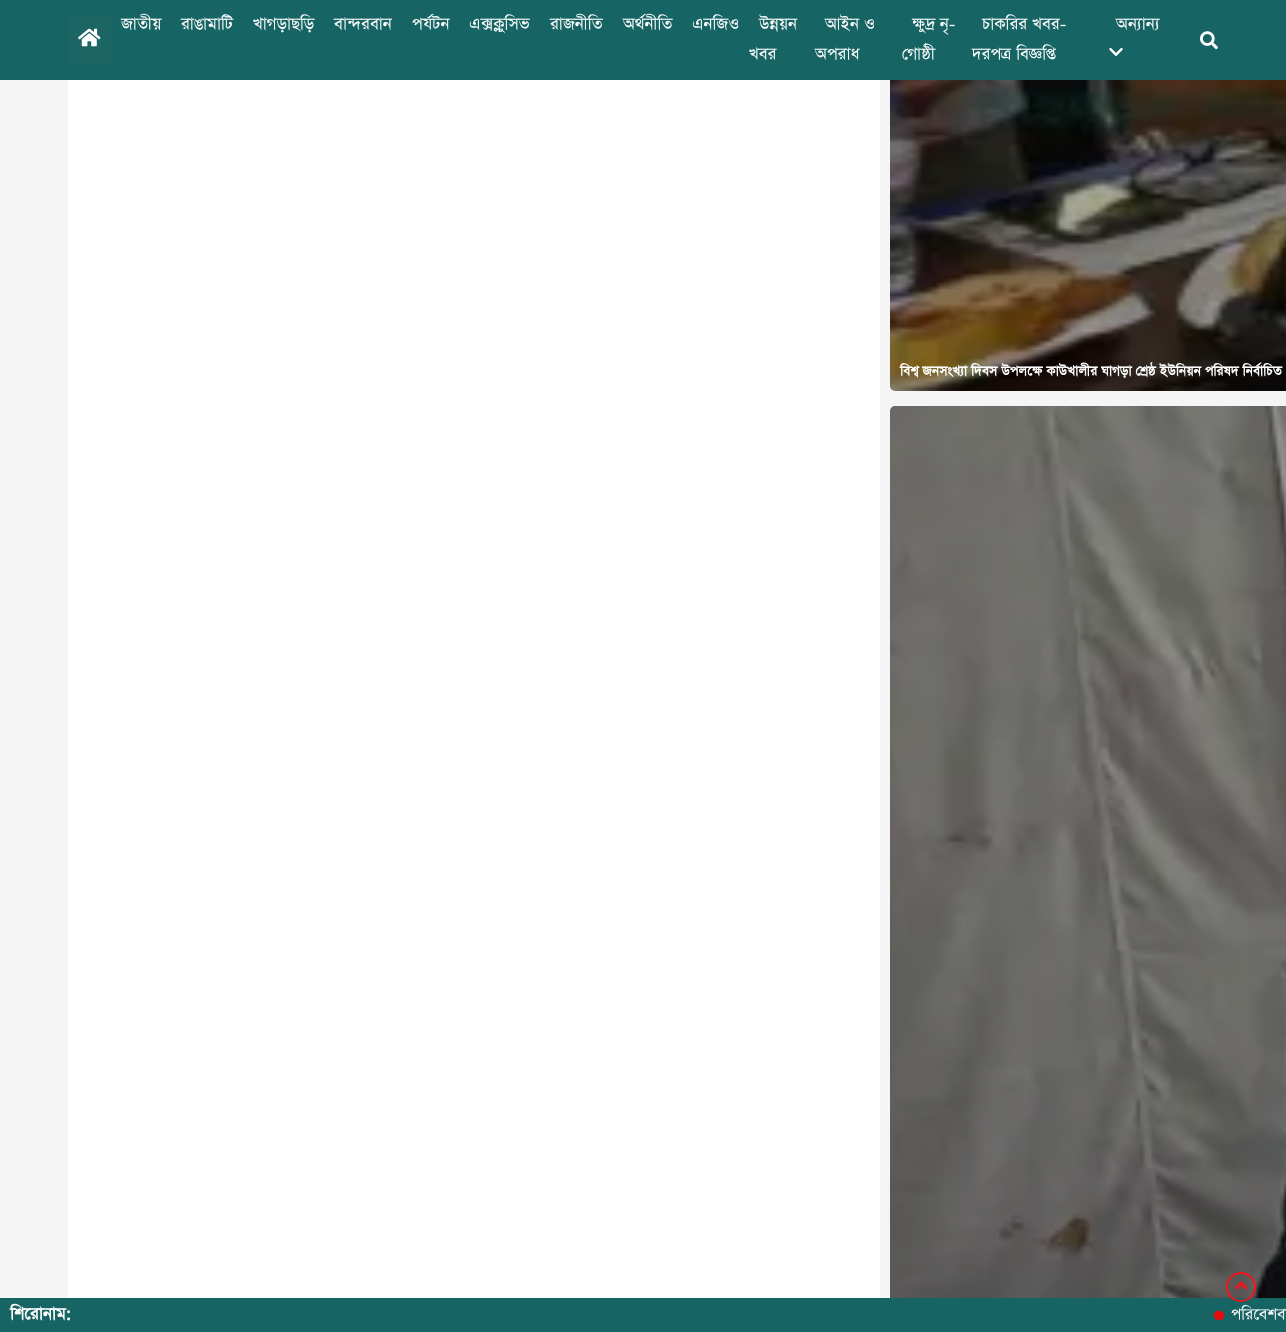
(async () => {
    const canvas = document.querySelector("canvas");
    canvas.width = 1286;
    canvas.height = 1332;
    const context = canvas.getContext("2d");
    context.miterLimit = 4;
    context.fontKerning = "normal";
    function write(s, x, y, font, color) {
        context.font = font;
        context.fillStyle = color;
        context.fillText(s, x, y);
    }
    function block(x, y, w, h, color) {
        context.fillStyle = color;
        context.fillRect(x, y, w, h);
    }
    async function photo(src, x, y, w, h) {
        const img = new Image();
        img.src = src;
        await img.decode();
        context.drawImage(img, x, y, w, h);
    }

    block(0, 0, 1286, 1332, "rgb(245, 245, 245)");
    block(0, 0, 1286, 80, "rgb(22, 101, 100)");
    block(68, 15, 43, 50, "rgb(29, 101, 100)");
    await photo("media/1.png", 78, 28, 23, 19);
    write("জাতীয়", 121, 30, "20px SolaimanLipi", "rgb(255, 255, 255)");
    write("রাঙামাটি", 181, 30, "20px SolaimanLipi", "rgb(255, 255, 255)");
    write("খাগড়াছড়ি", 253, 30, "20px SolaimanLipi", "rgb(255, 255, 255)");
    write("বান্দরবান", 334, 30, "20px SolaimanLipi", "rgb(255, 255, 255)");
    write("পর্যটন", 412, 30, "20px SolaimanLipi", "rgb(255, 255, 255)");
    write("এক্সক্লুসিভ", 469, 30, "20px SolaimanLipi", "rgb(255, 255, 255)");
    write("রাজনীতি", 550, 30, "20px SolaimanLipi", "rgb(255, 255, 255)");
    write("অর্থনীতি", 623, 30, "20px SolaimanLipi", "rgb(255, 255, 255)");
    write("এনজিও", 692, 30, "20px SolaimanLipi", "rgb(255, 255, 255)");
    write("উন্নয়ন", 759, 30, "20px SolaimanLipi", "rgb(255, 255, 255)");
    write("খবর", 749, 60, "20px SolaimanLipi", "rgb(255, 255, 255)");
    write("আইন ও", 825, 30, "20px SolaimanLipi", "rgb(255, 255, 255)");
    write("অপরাধ", 815, 60, "20px SolaimanLipi", "rgb(255, 255, 255)");
    write("ক্ষুদ্র নৃ-", 912, 30, "20px SolaimanLipi", "rgb(255, 255, 255)");
    write("গোষ্ঠী", 902, 60, "20px SolaimanLipi", "rgb(255, 255, 255)");
    write("চাকরির খবর-", 982, 30, "20px SolaimanLipi", "rgb(255, 255, 255)");
    write("দরপত্র বিজ্ঞপ্তি", 972, 60, "20px SolaimanLipi", "rgb(255, 255, 255)");
    write("অন্যান্য", 1116, 30, "20px SolaimanLipi", "rgb(255, 255, 255)");
    await photo("media/2.png", 1109, 47, 14, 10);
    await photo("media/3.png", 1200, 31, 18, 19);
    await photo("media/6.png", 890, 406, 396, 892);
    block(0, 1298, 1286, 34, "rgb(22, 101, 100)");
    context.beginPath();
    context.arc(1241, 1287, 14, 0, Math.PI * 2);
    context.strokeStyle = "rgb(243, 21, 28)";
    context.lineWidth = 2;
    context.stroke();
    await photo("media/4.png", 1235, 1281, 13, 9);
    block(68, 80, 812, 1218, "rgb(255, 255, 255)");
    await photo("media/5.png", 890, 80, 396, 311);
    write("বিশ্ব জনসংখ্যা দিবস উপলক্ষে কাউখালীর ঘাগড়া শ্রেষ্ঠ ইউনিয়ন পরিষদ নির্বাচিত", 900, 376, "bold 16px SolaimanLipi", "rgb(255, 255, 255)");
    write("শিরোনাম:", 10, 1320, "bold 20px SolaimanLipi", "rgb(255, 255, 255)");
    await photo("media/7.png", 1213, 1310, 12, 11);
    write("পরিবেশবা", 1231, 1320, "19px SolaimanLipi", "rgb(255, 255, 255)");
})();
